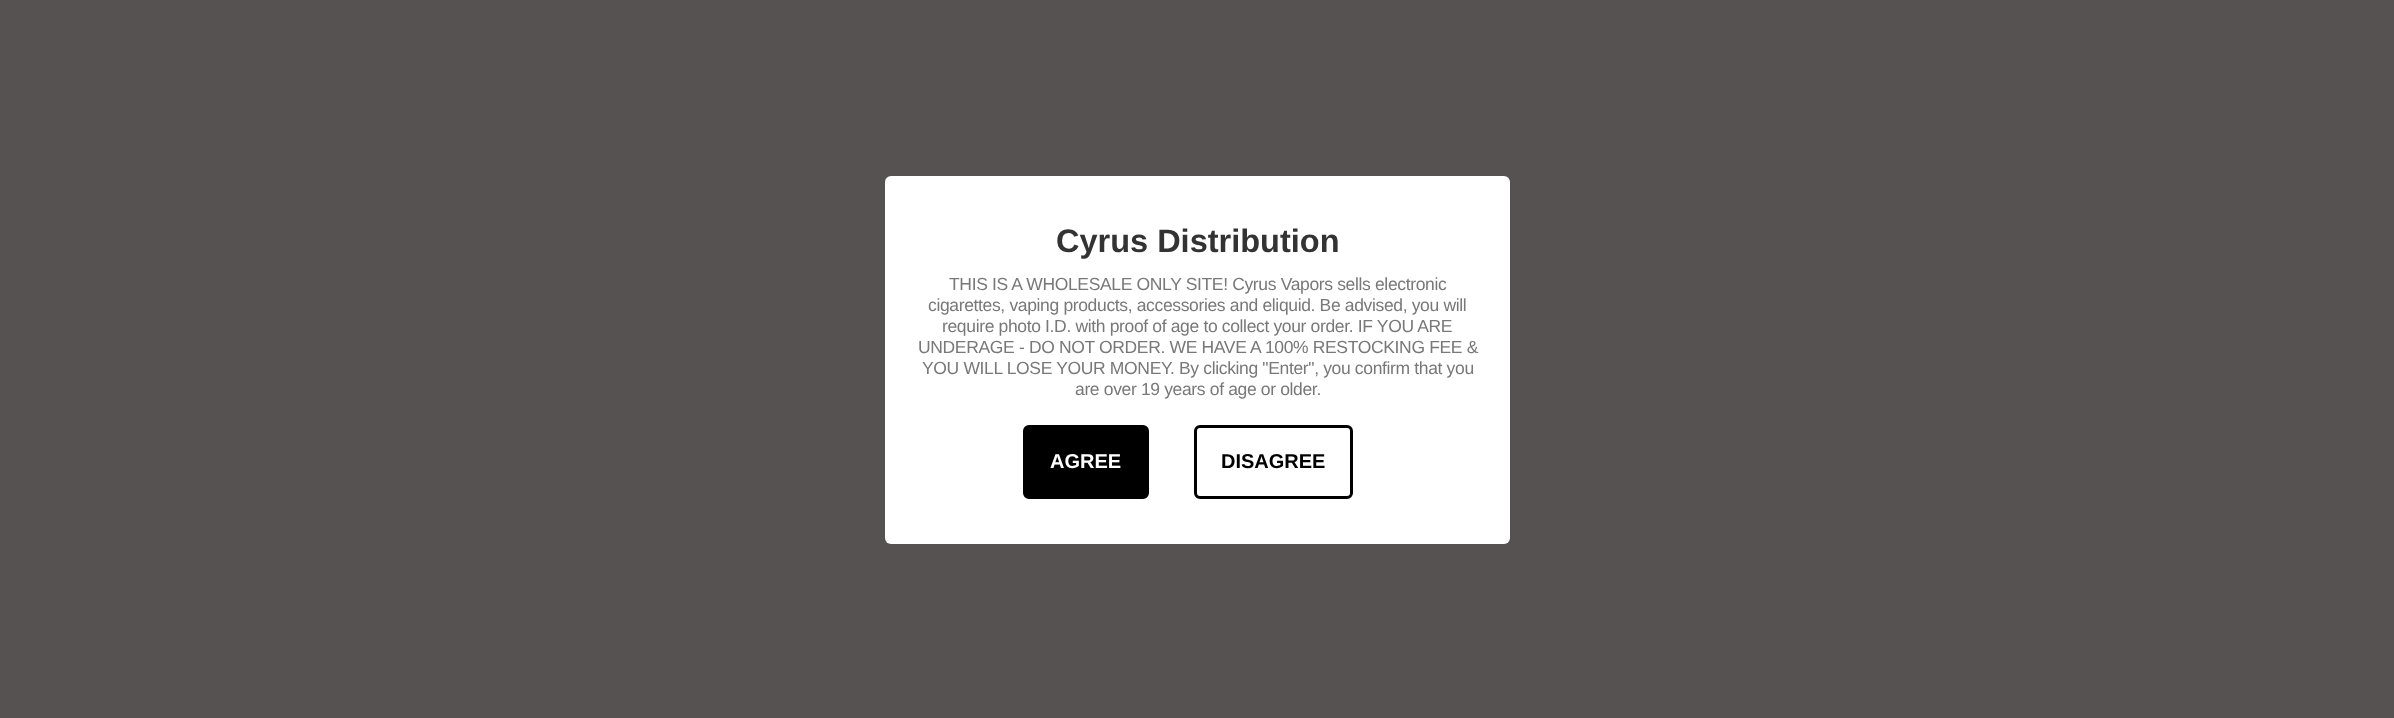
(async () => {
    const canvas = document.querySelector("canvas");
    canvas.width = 2394;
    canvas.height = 718;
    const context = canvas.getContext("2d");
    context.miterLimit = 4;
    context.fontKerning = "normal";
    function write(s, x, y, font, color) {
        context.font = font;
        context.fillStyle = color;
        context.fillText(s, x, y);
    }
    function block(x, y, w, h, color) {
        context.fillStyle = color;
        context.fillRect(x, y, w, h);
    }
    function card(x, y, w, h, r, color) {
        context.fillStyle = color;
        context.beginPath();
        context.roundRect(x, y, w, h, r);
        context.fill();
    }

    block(0, 0, 2394, 718, "rgb(87, 82, 82)");
    card(885, 176, 625, 368, 6, "rgb(255, 255, 255)");
    write("Cyrus Distribution", 1056, 252, "bold 32.5px Liberation Sans", "rgb(51, 51, 51)");
    context.letterSpacing = "-0.35px";
    write("THIS IS A WHOLESALE ONLY SITE! Cyrus Vapors sells electronic", 949, 290, "17.5px Liberation Sans", "rgb(120, 120, 120)");
    write("cigarettes, vaping products, accessories and eliquid. Be advised, you will", 928, 311, "17.5px Liberation Sans", "rgb(120, 120, 120)");
    write("require photo I.D. with proof of age to collect your order. IF YOU ARE", 942, 332, "17.5px Liberation Sans", "rgb(120, 120, 120)");
    write("UNDERAGE - DO NOT ORDER. WE HAVE A 100% RESTOCKING FEE &", 918, 353, "17.5px Liberation Sans", "rgb(120, 120, 120)");
    write("YOU WILL LOSE YOUR MONEY. By clicking \"Enter\", you confirm that you", 922, 374, "17.5px Liberation Sans", "rgb(120, 120, 120)");
    write("are over 19 years of age or older.", 1075, 395, "17.5px Liberation Sans", "rgb(120, 120, 120)");
    context.fillStyle = "rgb(0, 0, 0)";
    context.beginPath();
    context.roundRect(1024.5, 426.5, 123, 71, 4.5);
    context.fill();
    context.strokeStyle = "rgb(0, 0, 0)";
    context.lineWidth = 3;
    context.stroke();
    context.letterSpacing = "0px";
    write("AGREE", 1050, 468, "bold 20px Liberation Sans", "rgb(255, 255, 255)");
    context.beginPath();
    context.roundRect(1195.5, 426.5, 156, 71, 4.5);
    context.stroke();
    write("DISAGREE", 1221, 468, "bold 20px Liberation Sans", "rgb(0, 0, 0)");
})();
